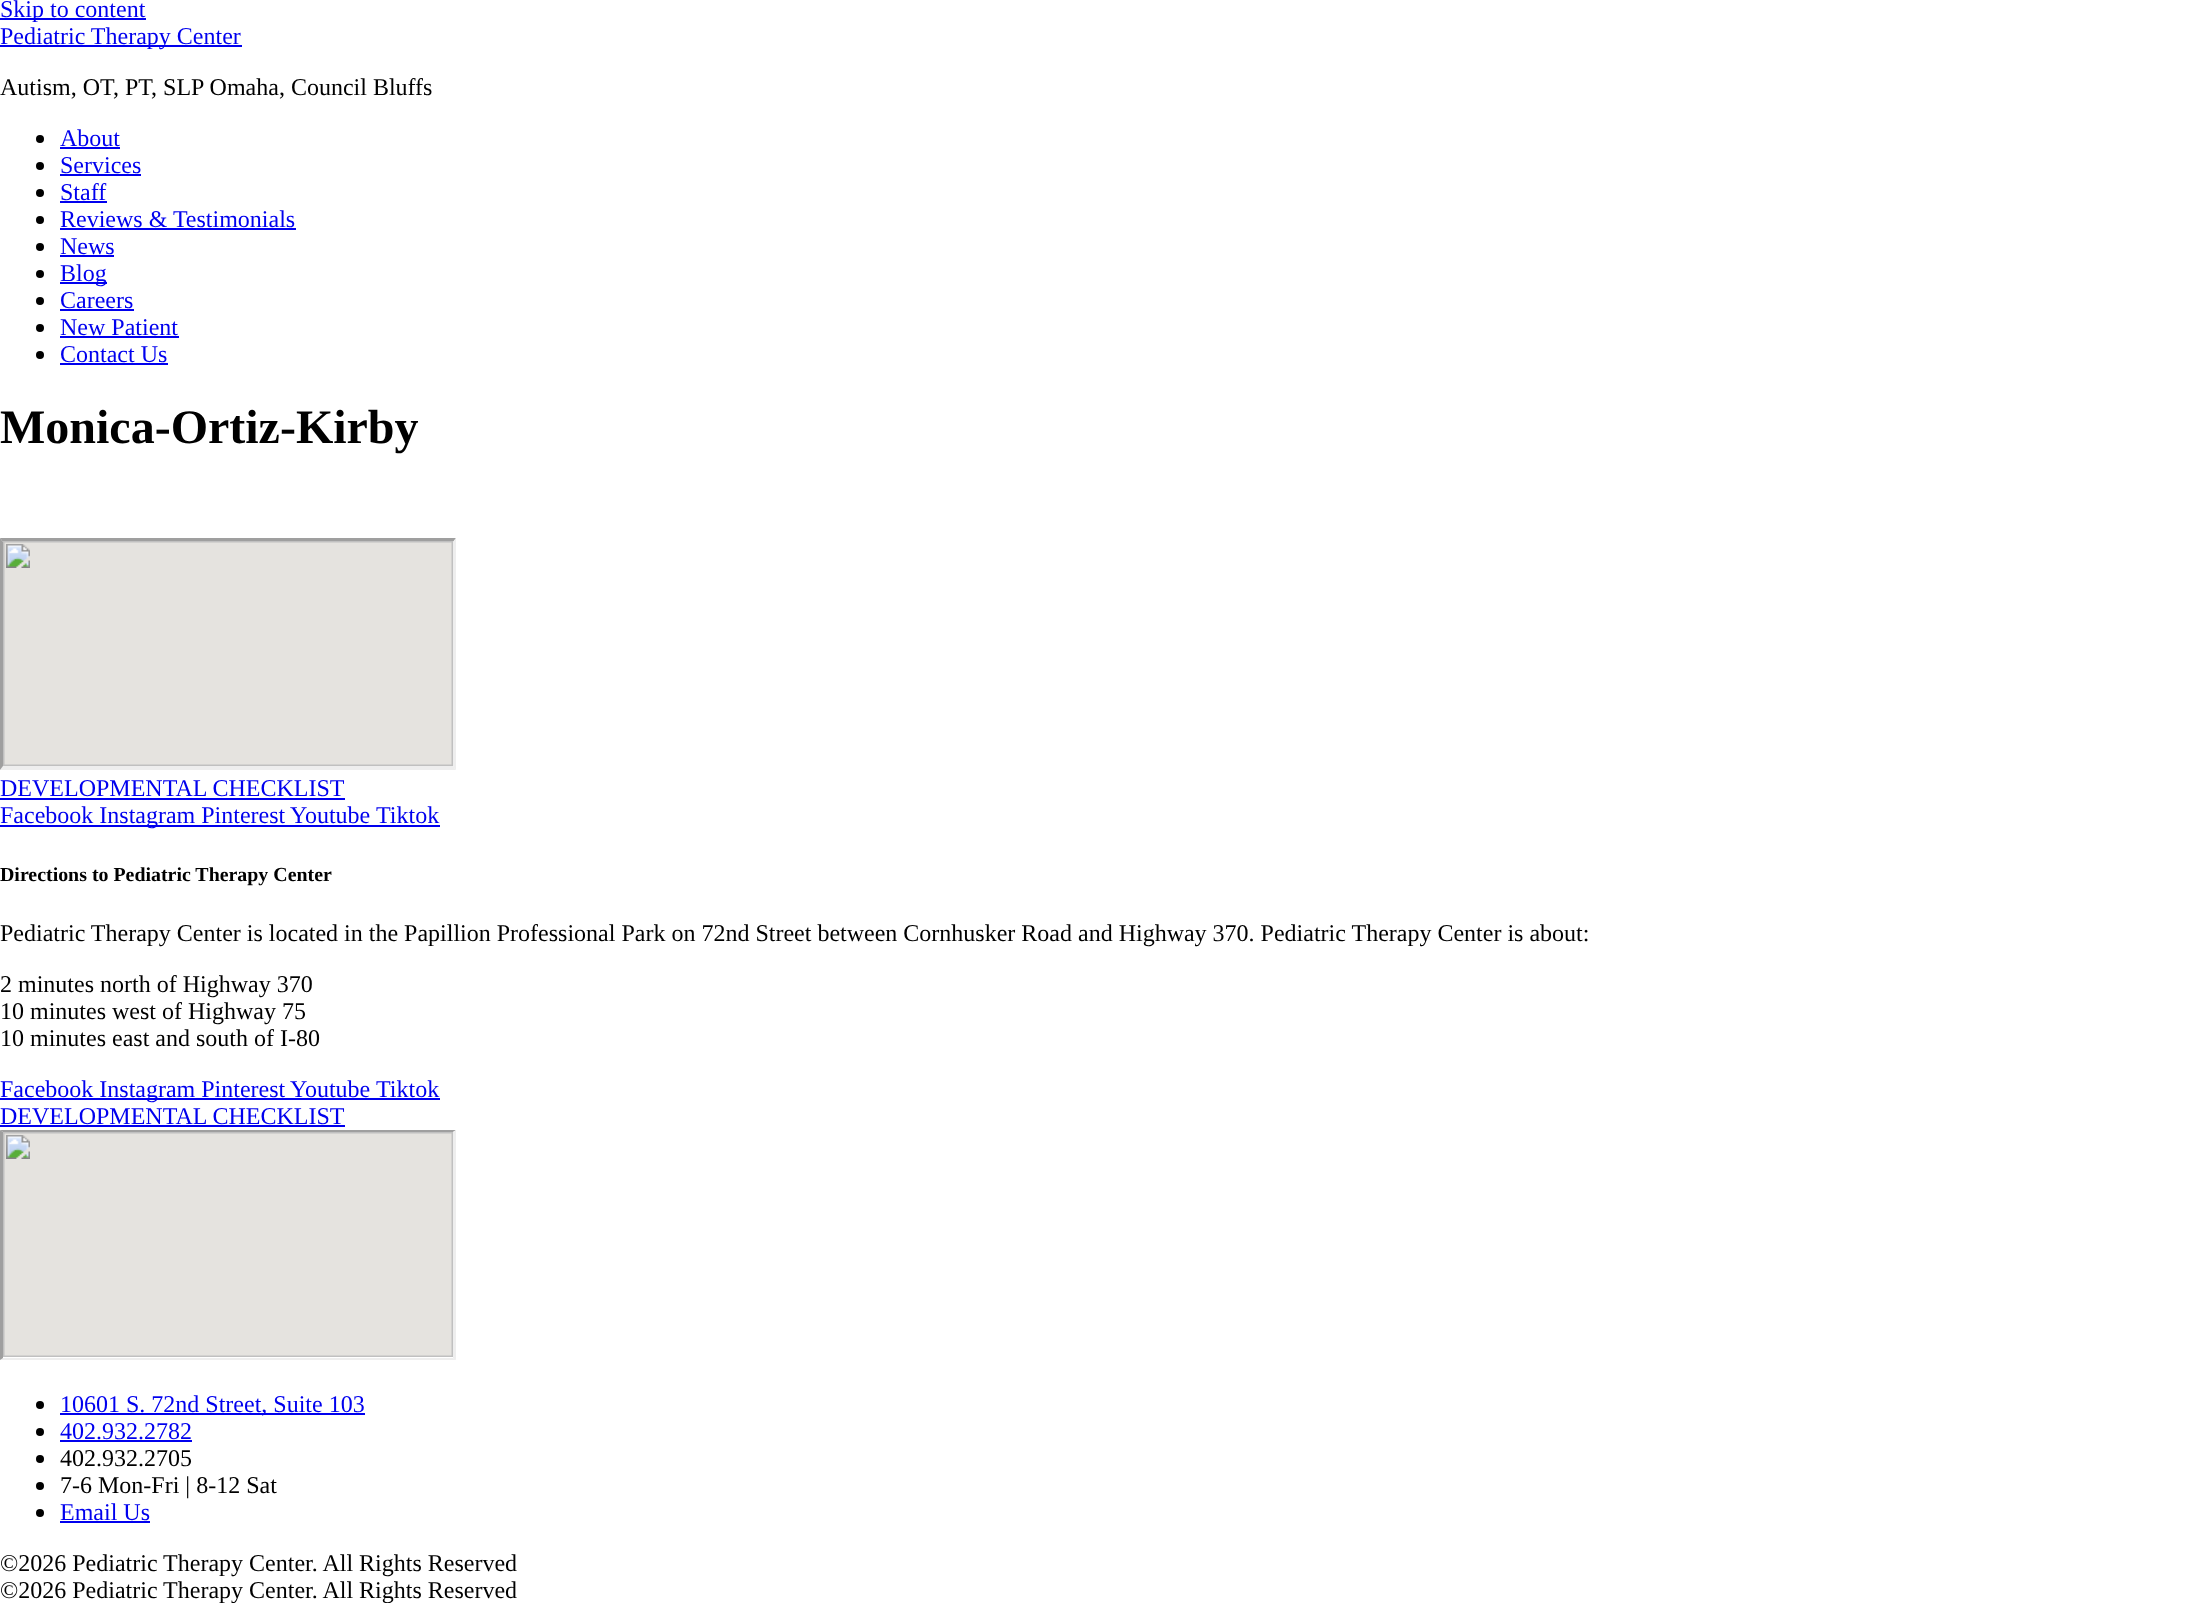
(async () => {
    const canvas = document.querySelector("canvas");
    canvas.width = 2203;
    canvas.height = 1603;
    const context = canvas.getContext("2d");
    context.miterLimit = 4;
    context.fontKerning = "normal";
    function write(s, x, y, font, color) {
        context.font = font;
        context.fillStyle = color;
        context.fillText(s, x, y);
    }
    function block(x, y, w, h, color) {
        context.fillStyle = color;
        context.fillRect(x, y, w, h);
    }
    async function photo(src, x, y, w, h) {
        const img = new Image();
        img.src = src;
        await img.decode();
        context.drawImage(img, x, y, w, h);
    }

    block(0, 0, 2203, 1603, "rgb(255, 255, 255)");
    block(0, 18, 146, 2, "rgb(0, 0, 238)");
    write("Skip to content", 0, 17, "24px Liberation Serif", "rgb(0, 0, 238)");
    block(0, 45, 242, 2, "rgb(0, 0, 238)");
    write("Pediatric Therapy Center", 0, 44, "24px Liberation Serif", "rgb(0, 0, 238)");
    write("Autism, OT, PT, SLP Omaha, Council Bluffs", 0, 95, "24px Liberation Serif", "rgb(0, 0, 0)");
    context.beginPath();
    context.arc(40, 139, 4, 0, Math.PI * 2);
    context.fill();
    write("About", 60, 146, "24px Liberation Serif", "rgb(0, 0, 238)");
    block(60, 147, 60, 2, "rgb(0, 0, 238)");
    context.fillStyle = "rgb(0, 0, 0)";
    context.beginPath();
    context.arc(40, 166, 4, 0, Math.PI * 2);
    context.fill();
    write("Services", 60, 173, "24px Liberation Serif", "rgb(0, 0, 238)");
    block(60, 174, 81, 2, "rgb(0, 0, 238)");
    context.fillStyle = "rgb(0, 0, 0)";
    context.beginPath();
    context.arc(40, 193, 4, 0, Math.PI * 2);
    context.fill();
    write("Staff", 60, 200, "24px Liberation Serif", "rgb(0, 0, 238)");
    block(60, 201, 47, 2, "rgb(0, 0, 238)");
    context.fillStyle = "rgb(0, 0, 0)";
    context.beginPath();
    context.arc(40, 220, 4, 0, Math.PI * 2);
    context.fill();
    write("Reviews & Testimonials", 60, 227, "24px Liberation Serif", "rgb(0, 0, 238)");
    block(60, 228, 236, 2, "rgb(0, 0, 238)");
    context.fillStyle = "rgb(0, 0, 0)";
    context.beginPath();
    context.arc(40, 247, 4, 0, Math.PI * 2);
    context.fill();
    write("News", 60, 254, "24px Liberation Serif", "rgb(0, 0, 238)");
    block(60, 255, 54, 2, "rgb(0, 0, 238)");
    context.fillStyle = "rgb(0, 0, 0)";
    context.beginPath();
    context.arc(40, 274, 4, 0, Math.PI * 2);
    context.fill();
    block(60, 282, 47, 2, "rgb(0, 0, 238)");
    write("Blog", 60, 281, "24px Liberation Serif", "rgb(0, 0, 238)");
    context.fillStyle = "rgb(0, 0, 0)";
    context.beginPath();
    context.arc(40, 301, 4, 0, Math.PI * 2);
    context.fill();
    write("Careers", 60, 308, "24px Liberation Serif", "rgb(0, 0, 238)");
    block(60, 309, 74, 2, "rgb(0, 0, 238)");
    context.fillStyle = "rgb(0, 0, 0)";
    context.beginPath();
    context.arc(40, 328, 4, 0, Math.PI * 2);
    context.fill();
    write("New Patient", 60, 335, "24px Liberation Serif", "rgb(0, 0, 238)");
    block(60, 336, 119, 2, "rgb(0, 0, 238)");
    context.fillStyle = "rgb(0, 0, 0)";
    context.beginPath();
    context.arc(40, 355, 4, 0, Math.PI * 2);
    context.fill();
    write("Contact Us", 60, 362, "24px Liberation Serif", "rgb(0, 0, 238)");
    block(60, 363, 108, 2, "rgb(0, 0, 238)");
    write("Monica-Ortiz-Kirby", 0, 443, "bold 48px Liberation Serif", "rgb(0, 0, 0)");
    context.fillStyle = "rgb(159, 159, 159)";
    context.beginPath();
    context.moveTo(0, 538);
    context.lineTo(456, 538);
    context.lineTo(453, 542);
    context.lineTo(3, 542);
    context.closePath();
    context.fill();
    context.fillStyle = "rgb(238, 238, 238)";
    context.beginPath();
    context.moveTo(456, 538);
    context.lineTo(456, 770);
    context.lineTo(453, 766);
    context.lineTo(453, 542);
    context.closePath();
    context.fill();
    context.beginPath();
    context.moveTo(456, 770);
    context.lineTo(0, 770);
    context.lineTo(3, 766);
    context.lineTo(453, 766);
    context.closePath();
    context.fill();
    context.fillStyle = "rgb(159, 159, 159)";
    context.beginPath();
    context.moveTo(0, 770);
    context.lineTo(0, 538);
    context.lineTo(3, 542);
    context.lineTo(3, 766);
    context.closePath();
    context.fill();
    await photo("media/1.png", 3, 541, 450, 225);
    write("DEVELOPMENTAL CHECKLIST", 0, 796, "24px Liberation Serif", "rgb(0, 0, 238)");
    block(0, 798, 345, 2, "rgb(0, 0, 238)");
    block(0, 825, 285, 2, "rgb(0, 0, 238)");
    write("Facebook Instagram Pinterest", 0, 823, "24px Liberation Serif", "rgb(0, 0, 238)");
    write("Youtube", 290, 823, "24px Liberation Serif", "rgb(0, 0, 238)");
    write("Tiktok", 376, 823, "24px Liberation Serif", "rgb(0, 0, 238)");
    block(285, 825, 155, 2, "rgb(0, 0, 238)");
    write("Directions to Pediatric Therapy Center", 0, 881, "bold 19.9px Liberation Serif", "rgb(0, 0, 0)");
    write("Pediatric Therapy Center is located in the Papillion Professional Park on 72nd Street between Cornhusker Road and Highway 370. Pediatric Therapy Center is about:", 0, 941, "24px Liberation Serif", "rgb(0, 0, 0)");
    write("2 minutes north of Highway 370", 0, 992, "24px Liberation Serif", "rgb(0, 0, 0)");
    write("10 minutes west of Highway 75", 0, 1019, "24px Liberation Serif", "rgb(0, 0, 0)");
    write("10 minutes east and south of I-80", 0, 1046, "24px Liberation Serif", "rgb(0, 0, 0)");
    block(0, 1098, 285, 2, "rgb(0, 0, 238)");
    write("Facebook Instagram Pinterest", 0, 1097, "24px Liberation Serif", "rgb(0, 0, 238)");
    write("Youtube", 290, 1097, "24px Liberation Serif", "rgb(0, 0, 238)");
    write("Tiktok", 376, 1097, "24px Liberation Serif", "rgb(0, 0, 238)");
    block(285, 1098, 155, 2, "rgb(0, 0, 238)");
    write("DEVELOPMENTAL CHECKLIST", 0, 1124, "24px Liberation Serif", "rgb(0, 0, 238)");
    block(0, 1125, 345, 2, "rgb(0, 0, 238)");
    context.fillStyle = "rgb(159, 159, 159)";
    context.beginPath();
    context.moveTo(0, 1130);
    context.lineTo(456, 1130);
    context.lineTo(453, 1132);
    context.lineTo(3, 1132);
    context.closePath();
    context.fill();
    context.fillStyle = "rgb(238, 238, 238)";
    context.beginPath();
    context.moveTo(456, 1130);
    context.lineTo(456, 1360);
    context.lineTo(453, 1358);
    context.lineTo(453, 1132);
    context.closePath();
    context.fill();
    context.beginPath();
    context.moveTo(456, 1360);
    context.lineTo(0, 1360);
    context.lineTo(3, 1358);
    context.lineTo(453, 1358);
    context.closePath();
    context.fill();
    context.fillStyle = "rgb(159, 159, 159)";
    context.beginPath();
    context.moveTo(0, 1360);
    context.lineTo(0, 1130);
    context.lineTo(3, 1132);
    context.lineTo(3, 1358);
    context.closePath();
    context.fill();
    await photo("media/1.png", 3, 1132, 450, 225);
    context.fillStyle = "rgb(0, 0, 0)";
    context.beginPath();
    context.arc(40, 1405, 4, 0, Math.PI * 2);
    context.fill();
    block(60, 1413, 305, 2, "rgb(0, 0, 238)");
    write("10601 S. 72nd Street, Suite 103", 60, 1412, "24px Liberation Serif", "rgb(0, 0, 238)");
    context.fillStyle = "rgb(0, 0, 0)";
    context.beginPath();
    context.arc(40, 1432, 4, 0, Math.PI * 2);
    context.fill();
    write("402.932.2782", 60, 1439, "24px Liberation Serif", "rgb(0, 0, 238)");
    block(60, 1440, 132, 2, "rgb(0, 0, 238)");
    context.fillStyle = "rgb(0, 0, 0)";
    context.beginPath();
    context.arc(40, 1459, 4, 0, Math.PI * 2);
    context.fill();
    write("402.932.2705", 60, 1466, "24px Liberation Serif", "rgb(0, 0, 0)");
    context.beginPath();
    context.arc(40, 1486, 4, 0, Math.PI * 2);
    context.fill();
    write("7-6 Mon-Fri | 8-12 Sat", 60, 1493, "24px Liberation Serif", "rgb(0, 0, 0)");
    context.beginPath();
    context.arc(40, 1513, 4, 0, Math.PI * 2);
    context.fill();
    write("Email Us", 60, 1520, "24px Liberation Serif", "rgb(0, 0, 238)");
    block(60, 1521, 90, 2, "rgb(0, 0, 238)");
    write("©2026 Pediatric Therapy Center. All Rights Reserved", 0, 1571, "24px Liberation Serif", "rgb(0, 0, 0)");
    write("©2026 Pediatric Therapy Center. All Rights Reserved", 0, 1598, "24px Liberation Serif", "rgb(0, 0, 0)");
})();
